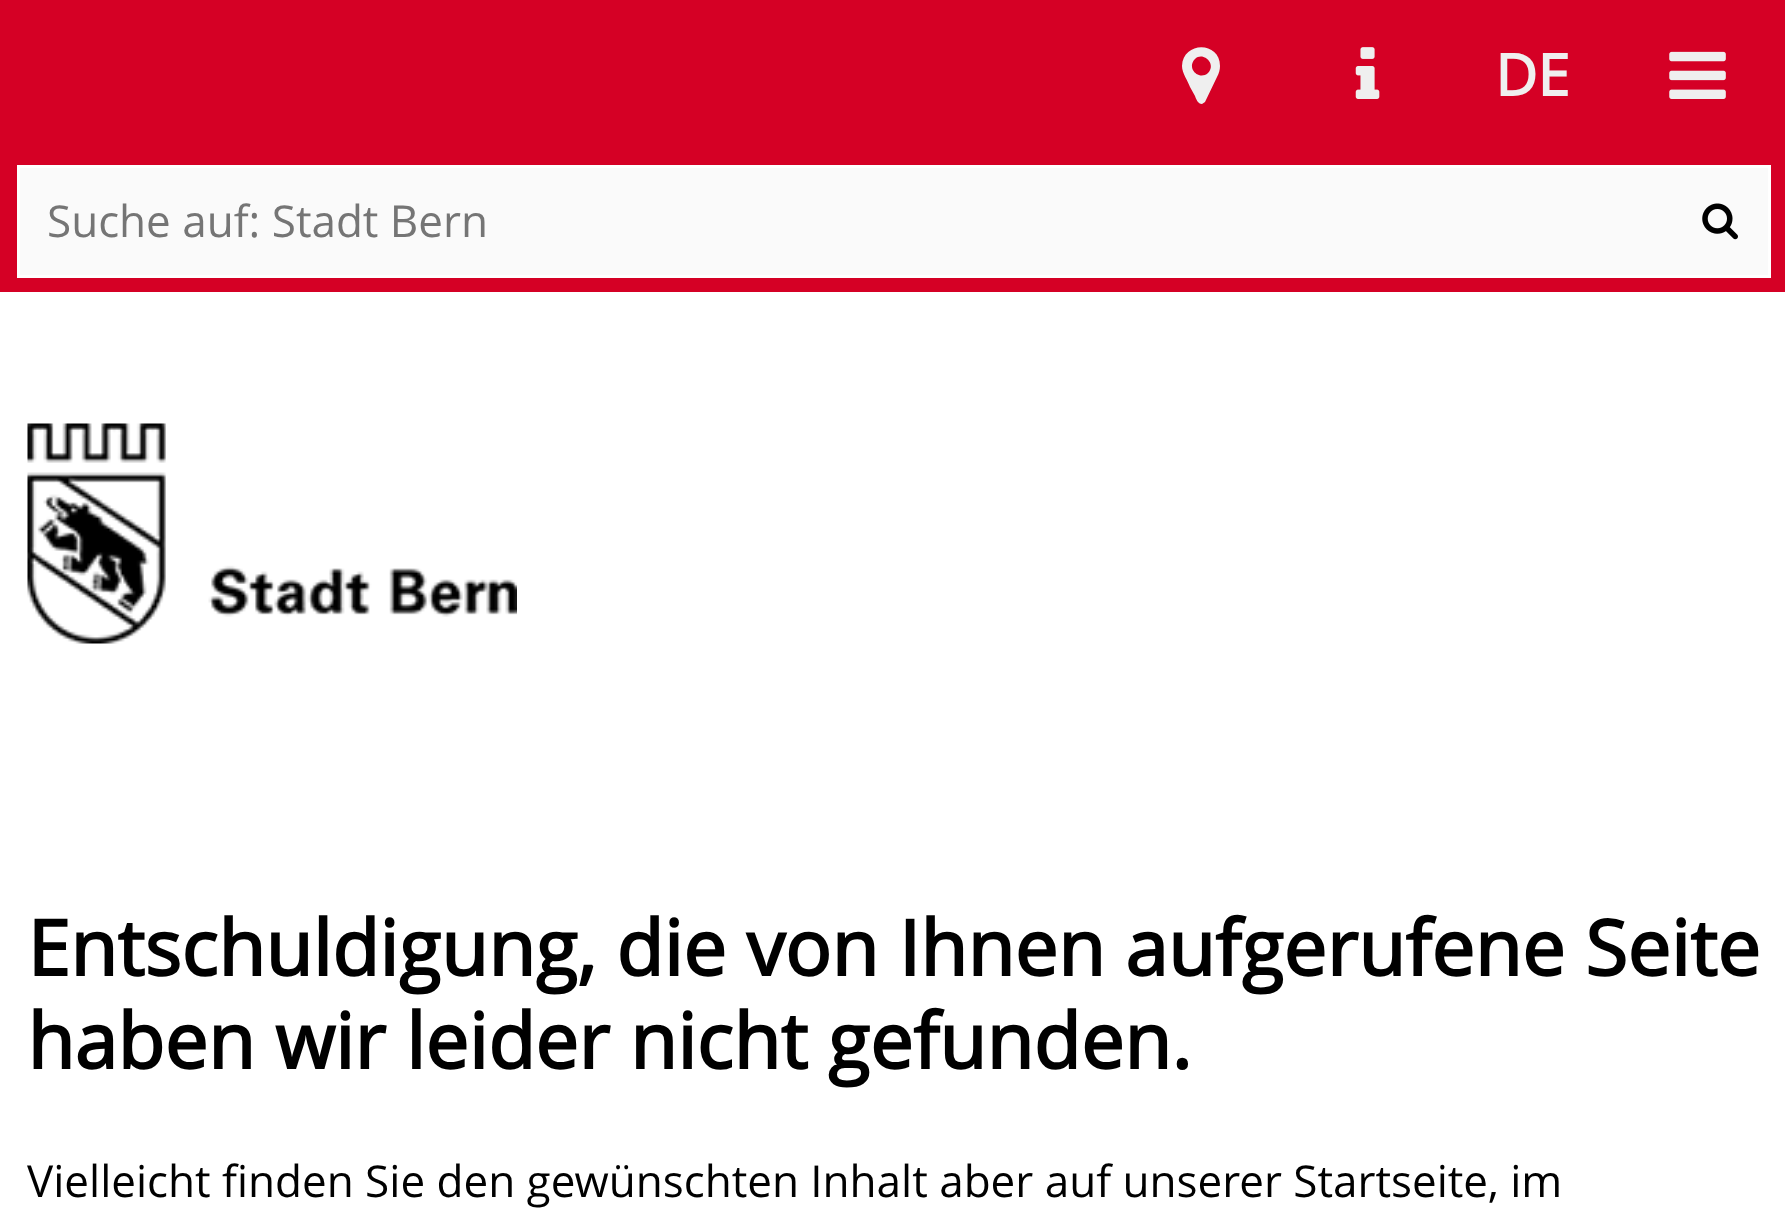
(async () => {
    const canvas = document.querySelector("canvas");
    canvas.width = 1785;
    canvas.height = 1226;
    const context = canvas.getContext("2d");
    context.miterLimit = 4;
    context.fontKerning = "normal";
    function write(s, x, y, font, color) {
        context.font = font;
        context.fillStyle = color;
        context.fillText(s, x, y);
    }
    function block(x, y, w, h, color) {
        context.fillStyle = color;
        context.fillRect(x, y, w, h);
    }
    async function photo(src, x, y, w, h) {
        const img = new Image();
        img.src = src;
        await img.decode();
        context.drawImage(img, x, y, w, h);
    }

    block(0, 0, 1785, 1226, "rgb(255, 255, 255)");
    block(0, 0, 1785, 292, "rgb(213, 0, 37)");
    context.fillStyle = "rgb(239, 239, 239)";
    context.beginPath();
    context.moveTo(1208, 73);
    context.bezierCurveTo(1217, 64, 1203, 51, 1195, 59);
    context.bezierCurveTo(1186, 68, 1199, 81, 1208, 73);
    context.closePath();
    context.moveTo(1220, 66);
    context.bezierCurveTo(1220, 70, 1219, 73, 1217, 77);
    context.lineTo(1205, 102);
    context.lineTo(1202, 104);
    context.bezierCurveTo(1198, 104, 1196, 99, 1195, 96);
    context.lineTo(1190, 87);
    context.bezierCurveTo(1188, 81, 1182, 73, 1182, 66);
    context.bezierCurveTo(1183, 41, 1220, 41, 1220, 66);
    context.closePath();
    context.fill();
    await photo("media/1.png", 1355, 47, 25, 52);
    write("DE", 1495, 96, "bold 58px Open Sans", "rgb(239, 239, 239)");
    await photo("media/2.png", 1669, 51, 57, 48);
    context.fillStyle = "rgb(250, 250, 250)";
    context.beginPath();
    context.rect(18.5, 166.5, 1751, 110);
    context.fill();
    context.strokeStyle = "rgb(255, 255, 255)";
    context.lineWidth = 3;
    context.stroke();
    write("Suche auf: Stadt Bern", 47, 237, "44px Open Sans", "rgb(117, 117, 117)");
    await photo("media/3.png", 1702, 203, 36, 37);
    await photo("media/4.png", 27, 423, 490, 221);
    write("Entschuldigung, die von Ihnen aufgerufene Seite", 27, 976, "bold 77px Open Sans", "rgb(0, 0, 0)");
    write("haben wir leider nicht gefunden.", 27, 1069, "bold 77px Open Sans", "rgb(0, 0, 0)");
    write("Vielleicht finden Sie den gewünschten Inhalt aber auf unserer Startseite, im", 27, 1197, "44px Open Sans", "rgb(0, 0, 0)");
})();
